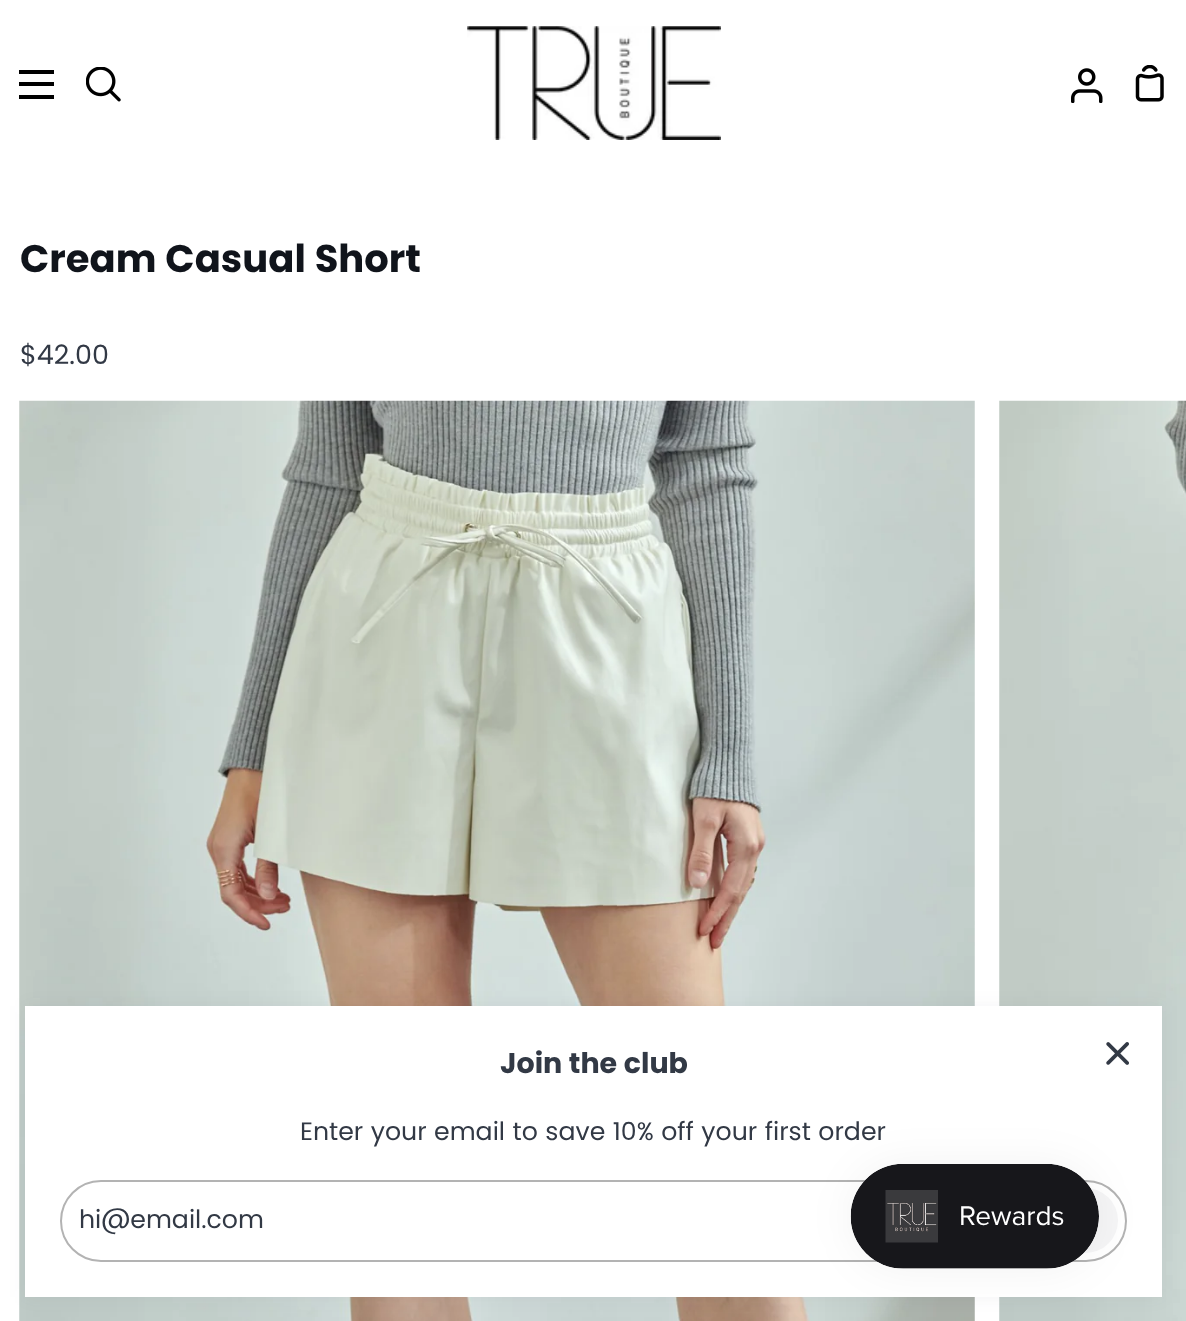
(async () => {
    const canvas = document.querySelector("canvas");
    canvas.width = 1186;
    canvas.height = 1321;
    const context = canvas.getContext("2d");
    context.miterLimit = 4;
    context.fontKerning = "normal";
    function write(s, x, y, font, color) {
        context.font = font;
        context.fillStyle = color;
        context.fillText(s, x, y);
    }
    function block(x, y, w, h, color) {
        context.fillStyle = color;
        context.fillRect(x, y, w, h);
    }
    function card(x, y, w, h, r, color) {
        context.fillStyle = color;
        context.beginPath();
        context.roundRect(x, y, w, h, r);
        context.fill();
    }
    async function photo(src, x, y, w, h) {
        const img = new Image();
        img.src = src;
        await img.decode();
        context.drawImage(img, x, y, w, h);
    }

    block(0, 0, 1186, 1321, "rgb(255, 255, 255)");
    block(19, 70, 35, 4, "rgb(0, 0, 0)");
    block(19, 82, 35, 4, "rgb(0, 0, 0)");
    block(19, 95, 35, 4, "rgb(0, 0, 0)");
    await photo("media/1.png", 86, 67, 35, 35);
    await photo("media/2.png", 467, 26, 254, 114);
    await photo("media/3.png", 1071, 68, 32, 35);
    await photo("media/4.png", 1135, 65, 29, 37);
    write("Cream Casual Short", 20, 272, "bold 38.5px Poppins", "rgb(16, 20, 27)");
    write("$42.00", 20, 364, "27px Poppins", "rgb(50, 57, 69)");
    await photo("media/5.png", 19, 400, 956, 921);
    await photo("media/6.png", 999, 400, 187, 921);
    context.fillStyle = "rgba(50, 57, 69, 0.05)";
    context.filter = "blur(9px)";
    context.beginPath();
    context.rect(25, 1006, 1137, 291);
    context.fill();
    context.filter = "none";
    block(25, 1006, 1137, 291, "rgb(255, 255, 255)");
    write("Join the club", 500, 1073, "bold 28.5px Poppins", "rgb(50, 57, 69)");
    await photo("media/7.png", 1106, 1042, 23, 23);
    write("Enter your email to save 10% off your first order", 300, 1140, "25.2px Poppins", "rgb(50, 57, 69)");
    context.beginPath();
    context.roundRect(61, 1181, 1065, 80, 40);
    context.strokeStyle = "rgb(179, 179, 179)";
    context.lineWidth = 2;
    context.stroke();
    write("hi@email.com", 79, 1228, "25.2px Poppins", "rgb(50, 57, 69)");
    card(1017, 1188, 101, 65, 32.5, "rgb(245, 245, 246)");
    context.fillStyle = "rgba(0, 0, 0, 0.05)";
    context.filter = "blur(22px)";
    context.beginPath();
    context.roundRect(851, 1164, 248, 105, 52.5);
    context.fill();
    context.filter = "none";
    await photo("media/8.png", 850, 1164, 249, 105);
})();
